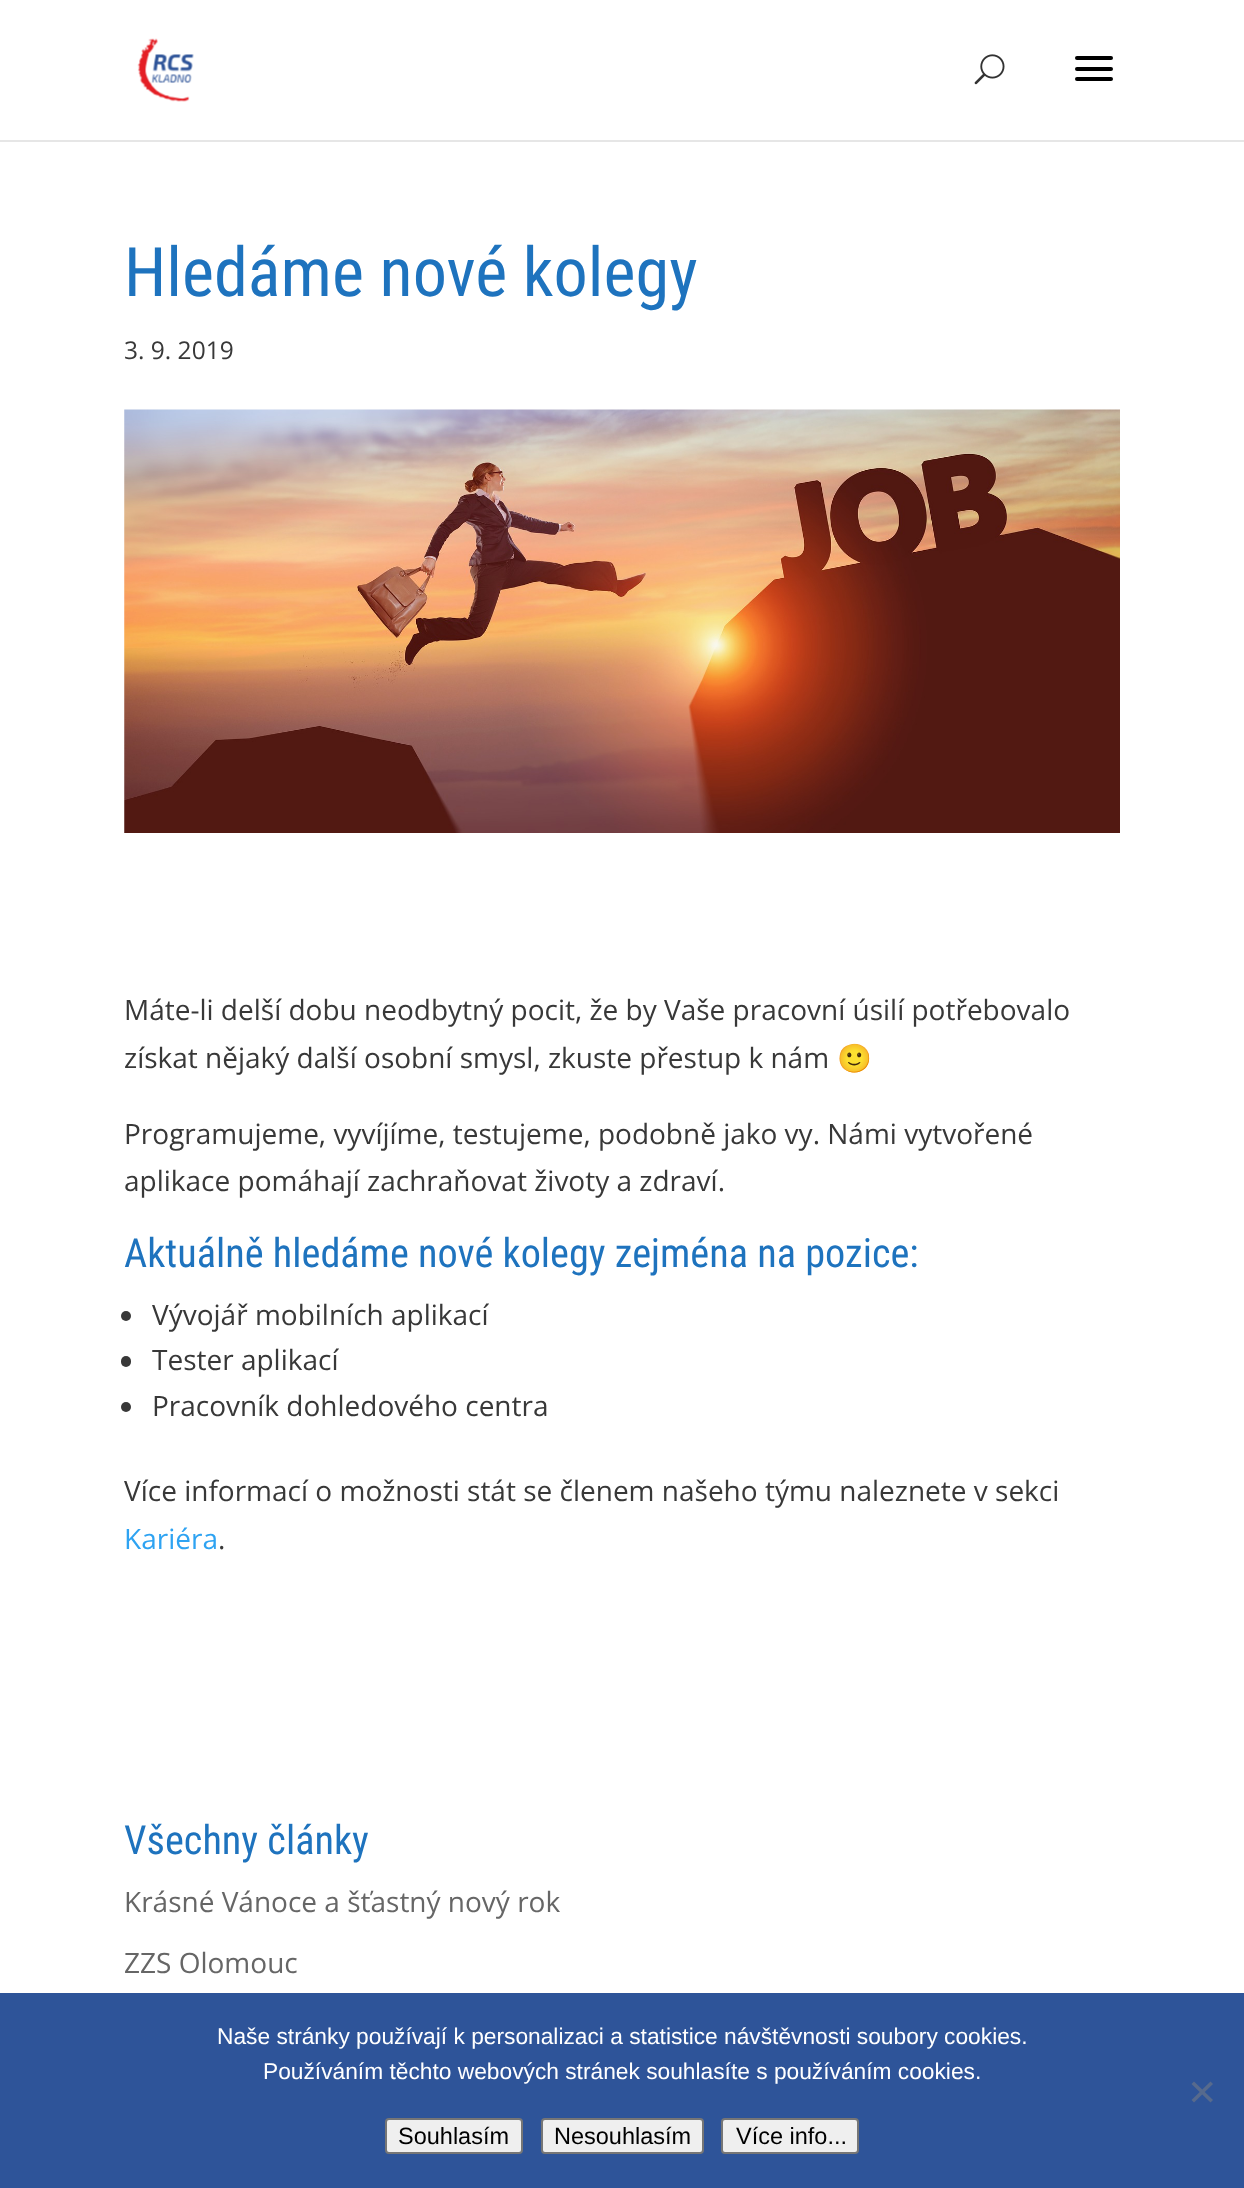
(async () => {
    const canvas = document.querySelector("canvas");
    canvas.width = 1244;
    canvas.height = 2188;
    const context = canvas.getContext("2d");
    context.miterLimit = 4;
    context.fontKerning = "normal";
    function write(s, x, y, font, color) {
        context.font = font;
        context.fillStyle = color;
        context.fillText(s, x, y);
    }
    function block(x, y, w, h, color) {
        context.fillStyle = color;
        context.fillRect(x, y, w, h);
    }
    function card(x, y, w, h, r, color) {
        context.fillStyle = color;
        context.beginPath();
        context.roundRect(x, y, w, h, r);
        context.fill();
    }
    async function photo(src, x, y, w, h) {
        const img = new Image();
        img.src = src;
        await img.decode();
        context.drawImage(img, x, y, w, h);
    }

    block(0, 0, 1244, 2188, "rgb(255, 255, 255)");
    block(0, 140, 1244, 2, "rgb(230, 230, 230)");
    await photo("media/1.png", 137, 38, 57, 64);
    await photo("media/2.png", 974, 54, 31, 31);
    card(1075, 56, 38, 4, 2, "rgb(0, 0, 0)");
    card(1075, 67, 38, 4, 2, "rgb(0, 0, 0)");
    card(1075, 77, 38, 4, 2, "rgb(0, 0, 0)");
    write("Hledáme nové kolegy", 124, 296, "68.25px Roboto Condensed", "rgb(30, 115, 190)");
    write("3. 9. 2019", 124, 359, "24.5px Open Sans", "rgb(56, 56, 56)");
    await photo("media/3.png", 124, 409, 996, 424);
    write("Máte-li delší dobu neodbytný pocit, že by Vaše pracovní úsilí potřebovalo", 124, 1020, "28px Open Sans", "rgb(56, 56, 56)");
    write("získat nějaký další osobní smysl, zkuste přestup k nám", 124, 1068, "28px Open Sans", "rgb(56, 56, 56)");
    write("🙂", 837, 1068, "28px Noto Color Emoji", "rgb(56, 56, 56)");
    write("Programujeme, vyvíjíme, testujeme, podobně jako vy. Námi vytvořené", 124, 1144, "28px Open Sans", "rgb(56, 56, 56)");
    write("aplikace pomáhají zachraňovat životy a zdraví.", 124, 1191, "28px Open Sans", "rgb(56, 56, 56)");
    write("Aktuálně hledáme nové kolegy zejména na pozice:", 124, 1267, "40.25px Roboto Condensed", "rgb(30, 115, 190)");
    context.fillStyle = "rgb(56, 56, 56)";
    context.beginPath();
    context.arc(126, 1316, 5, 0, Math.PI * 2);
    context.fill();
    write("Vývojář mobilních aplikací", 152, 1325, "28px Open Sans", "rgb(56, 56, 56)");
    card(121, 1356, 10, 11, 5, "rgb(56, 56, 56)");
    write("Tester aplikací", 152, 1370, "28px Open Sans", "rgb(56, 56, 56)");
    context.beginPath();
    context.arc(126, 1407, 5, 0, Math.PI * 2);
    context.fill();
    write("Pracovník dohledového centra", 152, 1416, "28px Open Sans", "rgb(56, 56, 56)");
    write("Více informací o možnosti stát se členem našeho týmu naleznete v sekci", 124, 1501, "28px Open Sans", "rgb(56, 56, 56)");
    write("Kariéra", 124, 1549, "28px Open Sans", "rgb(46, 163, 242)");
    write(".", 218, 1549, "28px Open Sans", "rgb(56, 56, 56)");
    write("Všechny články", 124, 1854, "40.25px Roboto Condensed", "rgb(30, 115, 190)");
    write("Krásné Vánoce a šťastný nový rok", 124, 1912, "28px Open Sans", "rgb(102, 102, 102)");
    write("ZZS Olomouc", 124, 1973, "28px Open Sans", "rgb(102, 102, 102)");
    block(0, 1993, 1244, 195, "rgb(46, 84, 153)");
    write("Naše stránky používají k personalizaci a statistice návštěvnosti soubory cookies.", 217, 2044, "22.75px Liberation Sans", "rgb(255, 255, 255)");
    write("Používáním těchto webových stránek souhlasíte s používáním cookies.", 263, 2079, "22.75px Liberation Sans", "rgb(255, 255, 255)");
    context.fillStyle = "rgb(87, 106, 141)";
    context.beginPath();
    context.moveTo(1210.5, 2081.5);
    context.lineTo(1213, 2084);
    context.lineTo(1194, 2102.5);
    context.lineTo(1191.5, 2100);
    context.closePath();
    context.fill();
    context.beginPath();
    context.moveTo(1191.5, 2084);
    context.lineTo(1194, 2081.5);
    context.lineTo(1213, 2100);
    context.lineTo(1210.5, 2102.5);
    context.closePath();
    context.fill();
    context.fillStyle = "rgb(239, 239, 239)";
    context.beginPath();
    context.roundRect(386, 2119, 136, 34, 3);
    context.fill();
    context.strokeStyle = "rgb(118, 118, 118)";
    context.lineWidth = 2;
    context.stroke();
    write("Souhlasím", 398, 2144, "23.5px Liberation Sans", "rgb(0, 0, 0)");
    context.fillStyle = "rgb(239, 239, 239)";
    context.beginPath();
    context.roundRect(542, 2119, 161, 34, 3);
    context.fill();
    context.stroke();
    write("Nesouhlasím", 554, 2144, "23.5px Liberation Sans", "rgb(0, 0, 0)");
    context.fillStyle = "rgb(239, 239, 239)";
    context.beginPath();
    context.roundRect(722, 2119, 136, 34, 3);
    context.fill();
    context.stroke();
    write("Více info...", 736, 2144, "23.5px Liberation Sans", "rgb(0, 0, 0)");
})();
